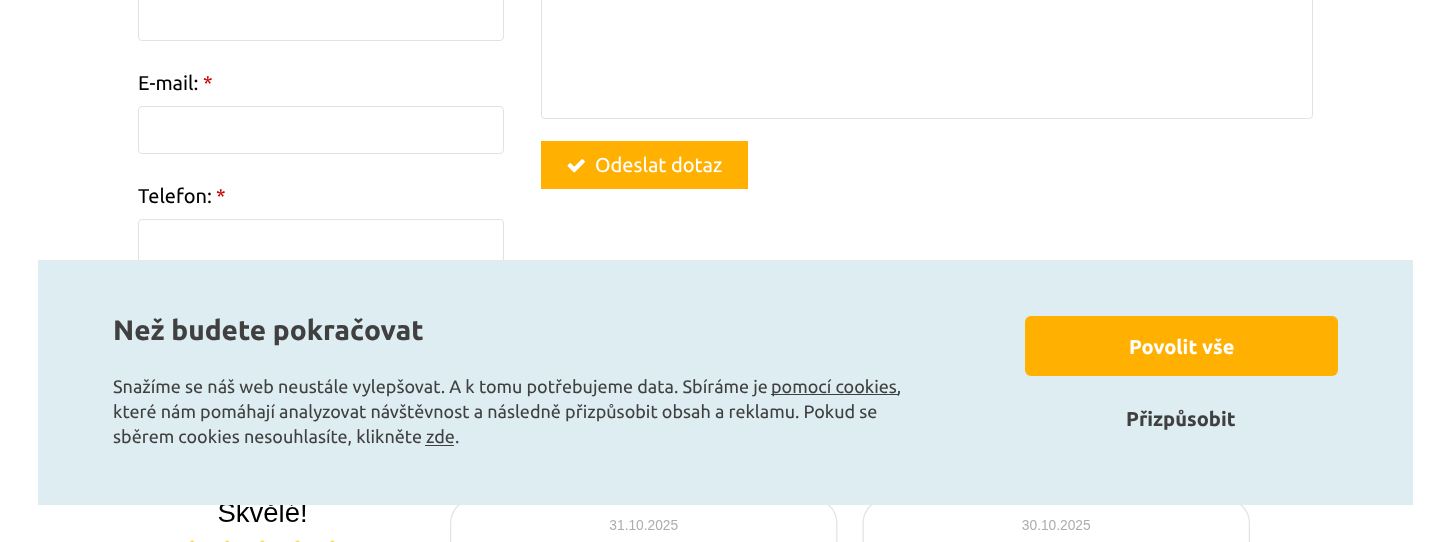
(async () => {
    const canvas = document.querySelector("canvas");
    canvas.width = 1450;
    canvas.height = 542;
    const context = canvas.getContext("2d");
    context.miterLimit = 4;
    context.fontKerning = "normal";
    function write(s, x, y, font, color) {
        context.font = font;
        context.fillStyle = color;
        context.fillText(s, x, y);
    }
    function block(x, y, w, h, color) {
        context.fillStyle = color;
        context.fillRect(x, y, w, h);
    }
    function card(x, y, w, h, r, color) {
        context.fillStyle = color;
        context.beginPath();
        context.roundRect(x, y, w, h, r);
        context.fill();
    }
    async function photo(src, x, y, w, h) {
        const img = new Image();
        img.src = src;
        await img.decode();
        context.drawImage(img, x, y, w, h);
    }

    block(0, 0, 1450, 542, "rgb(255, 255, 255)");
    context.beginPath();
    context.roundRect(138.5, -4.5, 365, 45, 3.5);
    context.strokeStyle = "rgb(226, 226, 226)";
    context.stroke();
    write("E-mail:", 138, 90, "20px Ubuntu", "rgb(0, 0, 0)");
    write("*", 203, 90, "20px Ubuntu", "rgb(204, 0, 0)");
    context.beginPath();
    context.roundRect(138.5, 106.5, 365, 47, 3.5);
    context.stroke();
    write("Telefon:", 138, 203, "20px Ubuntu", "rgb(0, 0, 0)");
    write("*", 216, 203, "20px Ubuntu", "rgb(204, 0, 0)");
    context.beginPath();
    context.roundRect(138.5, 219.5, 365, 46, 3.5);
    context.stroke();
    context.beginPath();
    context.roundRect(541.5, -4.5, 771, 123, 3.5);
    context.stroke();
    block(541, 141, 207, 48, "rgb(255, 176, 0)");
    await photo("media/1.png", 567, 159, 18, 14);
    write("Odeslat dotaz", 595, 172, "20px Ubuntu", "rgb(255, 255, 255)");
    await photo("media/2.png", 189, 505, 1061, 37);
    block(38, 260, 1375, 245, "rgb(222, 237, 242)");
    write("Než budete pokračovat", 113, 340, "bold 28px Ubuntu", "rgb(64, 64, 64)");
    write("Snažíme se náš web neustále vylepšovat. A k tomu potřebujeme data. Sbíráme je", 113, 393, "18px Ubuntu", "rgb(64, 64, 64)");
    block(771, 394, 127, 1, "rgb(64, 64, 64)");
    write("pomocí cookies,", 771, 393, "18px Ubuntu", "rgb(64, 64, 64)");
    write("které nám pomáhají analyzovat návštěvnost a následně přizpůsobit obsah a reklamu. Pokud se", 113, 418, "18px Ubuntu", "rgb(64, 64, 64)");
    write("sběrem cookies nesouhlasíte, klikněte zde.", 113, 443, "18px Ubuntu", "rgb(64, 64, 64)");
    block(425, 445, 29, 1, "rgb(64, 64, 64)");
    card(1025, 316, 313, 60, 6, "rgb(255, 176, 0)");
    write("Povolit vše", 1129, 354, "bold 20px Ubuntu", "rgb(255, 255, 255)");
    write("Přizpůsobit", 1126, 426, "bold 20px Ubuntu", "rgb(64, 64, 64)");
})();
